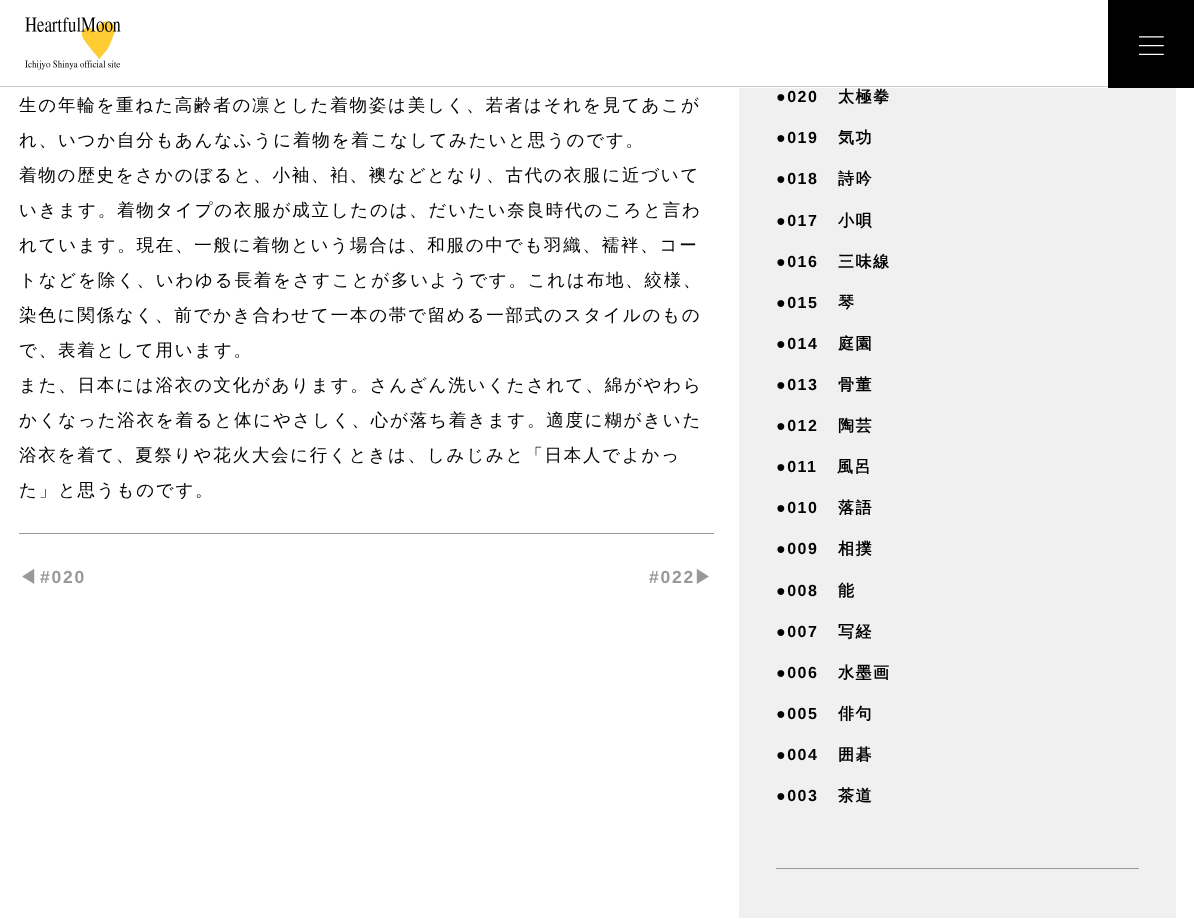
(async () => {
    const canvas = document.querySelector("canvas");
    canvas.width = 1194;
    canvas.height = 918;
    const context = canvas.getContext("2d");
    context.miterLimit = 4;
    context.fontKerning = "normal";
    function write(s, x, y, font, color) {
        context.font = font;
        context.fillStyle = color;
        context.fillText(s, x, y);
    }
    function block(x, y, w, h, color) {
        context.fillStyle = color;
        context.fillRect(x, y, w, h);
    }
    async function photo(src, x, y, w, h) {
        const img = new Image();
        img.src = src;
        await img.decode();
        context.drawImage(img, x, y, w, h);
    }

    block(0, 0, 1194, 918, "rgb(255, 255, 255)");
    block(0, 86, 1108, 1, "rgb(204, 204, 204)");
    await photo("media/1.png", 25, 17, 96, 53);
    block(1108, 0, 86, 88, "rgb(0, 0, 0)");
    await photo("media/2.png", 1139, 36, 25, 19);
    context.letterSpacing = "1.75px";
    write("生の年輪を重ねた高齢者の凛とした着物姿は美しく、若者はそれを見てあこが", 19, 111, "500 17.5px WenQuanYi Zen Hei", "rgb(0, 0, 0)");
    write("れ、いつか自分もあんなふうに着物を着こなしてみたいと思うのです。", 19, 146, "500 17.5px WenQuanYi Zen Hei", "rgb(0, 0, 0)");
    write("着物の歴史をさかのぼると、小袖、袙、襖などとなり、古代の衣服に近づいて", 19, 181, "500 17.5px WenQuanYi Zen Hei", "rgb(0, 0, 0)");
    write("いきます。着物タイプの衣服が成立したのは、だいたい奈良時代のころと言わ", 19, 216, "500 17.5px WenQuanYi Zen Hei", "rgb(0, 0, 0)");
    write("れています。現在、一般に着物という場合は、和服の中でも羽織、襦袢、コー", 19, 251, "500 17.5px WenQuanYi Zen Hei", "rgb(0, 0, 0)");
    write("トなどを除く、いわゆる長着をさすことが多いようです。これは布地、絞様、", 19, 286, "500 17.5px WenQuanYi Zen Hei", "rgb(0, 0, 0)");
    write("染色に関係なく、前でかき合わせて一本の帯で留める一部式のスタイルのもの", 19, 321, "500 17.5px WenQuanYi Zen Hei", "rgb(0, 0, 0)");
    write("で、表着として用います。", 19, 356, "500 17.5px WenQuanYi Zen Hei", "rgb(0, 0, 0)");
    write("また、日本には浴衣の文化があります。さんざん洗いくたされて、綿がやわら", 19, 391, "500 17.5px WenQuanYi Zen Hei", "rgb(0, 0, 0)");
    write("かくなった浴衣を着ると体にやさしく、心が落ち着きます。適度に糊がきいた", 19, 426, "500 17.5px WenQuanYi Zen Hei", "rgb(0, 0, 0)");
    write("浴衣を着て、夏祭りや花火大会に行くときは、しみじみと「日本人でよかっ", 19, 461, "500 17.5px WenQuanYi Zen Hei", "rgb(0, 0, 0)");
    write("た」と思うものです。", 19, 496, "500 17.5px WenQuanYi Zen Hei", "rgb(0, 0, 0)");
    block(19, 533, 695, 1, "rgb(153, 153, 153)");
    write("◀︎", 19, 583, "bold 17.5px WenQuanYi Zen Hei", "rgb(153, 153, 153)");
    write("#020", 40, 583, "bold 17.5px Liberation Sans", "rgb(153, 153, 153)");
    write("#022", 649, 583, "bold 17.5px Liberation Sans", "rgb(153, 153, 153)");
    write("▶︎", 694, 583, "bold 17.5px WenQuanYi Zen Hei", "rgb(153, 153, 153)");
    block(739, 88, 437, 830, "rgb(240, 240, 240)");
    context.letterSpacing = "1.5px";
    write("●020", 776, 102, "bold 16px Liberation Sans", "rgb(0, 0, 0)");
    write("太極拳", 838, 102, "bold 16px WenQuanYi Zen Hei", "rgb(0, 0, 0)");
    write("●019", 776, 143, "bold 16px Liberation Sans", "rgb(0, 0, 0)");
    write("気功", 838, 143, "bold 16px WenQuanYi Zen Hei", "rgb(0, 0, 0)");
    write("●018", 776, 184, "bold 16px Liberation Sans", "rgb(0, 0, 0)");
    write("詩吟", 838, 184, "bold 16px WenQuanYi Zen Hei", "rgb(0, 0, 0)");
    write("●017", 776, 226, "bold 16px Liberation Sans", "rgb(0, 0, 0)");
    write("小唄", 838, 226, "bold 16px WenQuanYi Zen Hei", "rgb(0, 0, 0)");
    write("●016", 776, 267, "bold 16px Liberation Sans", "rgb(0, 0, 0)");
    write("三味線", 838, 267, "bold 16px WenQuanYi Zen Hei", "rgb(0, 0, 0)");
    write("●015", 776, 308, "bold 16px Liberation Sans", "rgb(0, 0, 0)");
    write("琴", 838, 308, "bold 16px WenQuanYi Zen Hei", "rgb(0, 0, 0)");
    write("●014", 776, 349, "bold 16px Liberation Sans", "rgb(0, 0, 0)");
    write("庭園", 838, 349, "bold 16px WenQuanYi Zen Hei", "rgb(0, 0, 0)");
    write("●013", 776, 390, "bold 16px Liberation Sans", "rgb(0, 0, 0)");
    write("骨董", 838, 390, "bold 16px WenQuanYi Zen Hei", "rgb(0, 0, 0)");
    write("●012", 776, 431, "bold 16px Liberation Sans", "rgb(0, 0, 0)");
    write("陶芸", 838, 431, "bold 16px WenQuanYi Zen Hei", "rgb(0, 0, 0)");
    write("●011", 776, 472, "bold 16px Liberation Sans", "rgb(0, 0, 0)");
    write("風呂", 837, 472, "bold 16px WenQuanYi Zen Hei", "rgb(0, 0, 0)");
    write("●010", 776, 513, "bold 16px Liberation Sans", "rgb(0, 0, 0)");
    write("落語", 838, 513, "bold 16px WenQuanYi Zen Hei", "rgb(0, 0, 0)");
    write("●009", 776, 554, "bold 16px Liberation Sans", "rgb(0, 0, 0)");
    write("相撲", 838, 554, "bold 16px WenQuanYi Zen Hei", "rgb(0, 0, 0)");
    write("●008", 776, 596, "bold 16px Liberation Sans", "rgb(0, 0, 0)");
    write("能", 838, 596, "bold 16px WenQuanYi Zen Hei", "rgb(0, 0, 0)");
    write("●007", 776, 637, "bold 16px Liberation Sans", "rgb(0, 0, 0)");
    write("写経", 838, 637, "bold 16px WenQuanYi Zen Hei", "rgb(0, 0, 0)");
    write("●006", 776, 678, "bold 16px Liberation Sans", "rgb(0, 0, 0)");
    write("水墨画", 838, 678, "bold 16px WenQuanYi Zen Hei", "rgb(0, 0, 0)");
    write("●005", 776, 719, "bold 16px Liberation Sans", "rgb(0, 0, 0)");
    write("俳句", 838, 719, "bold 16px WenQuanYi Zen Hei", "rgb(0, 0, 0)");
    write("●004", 776, 760, "bold 16px Liberation Sans", "rgb(0, 0, 0)");
    write("囲碁", 838, 760, "bold 16px WenQuanYi Zen Hei", "rgb(0, 0, 0)");
    write("●003", 776, 801, "bold 16px Liberation Sans", "rgb(0, 0, 0)");
    write("茶道", 838, 801, "bold 16px WenQuanYi Zen Hei", "rgb(0, 0, 0)");
    block(776, 868, 363, 1, "rgb(153, 153, 153)");
})();
